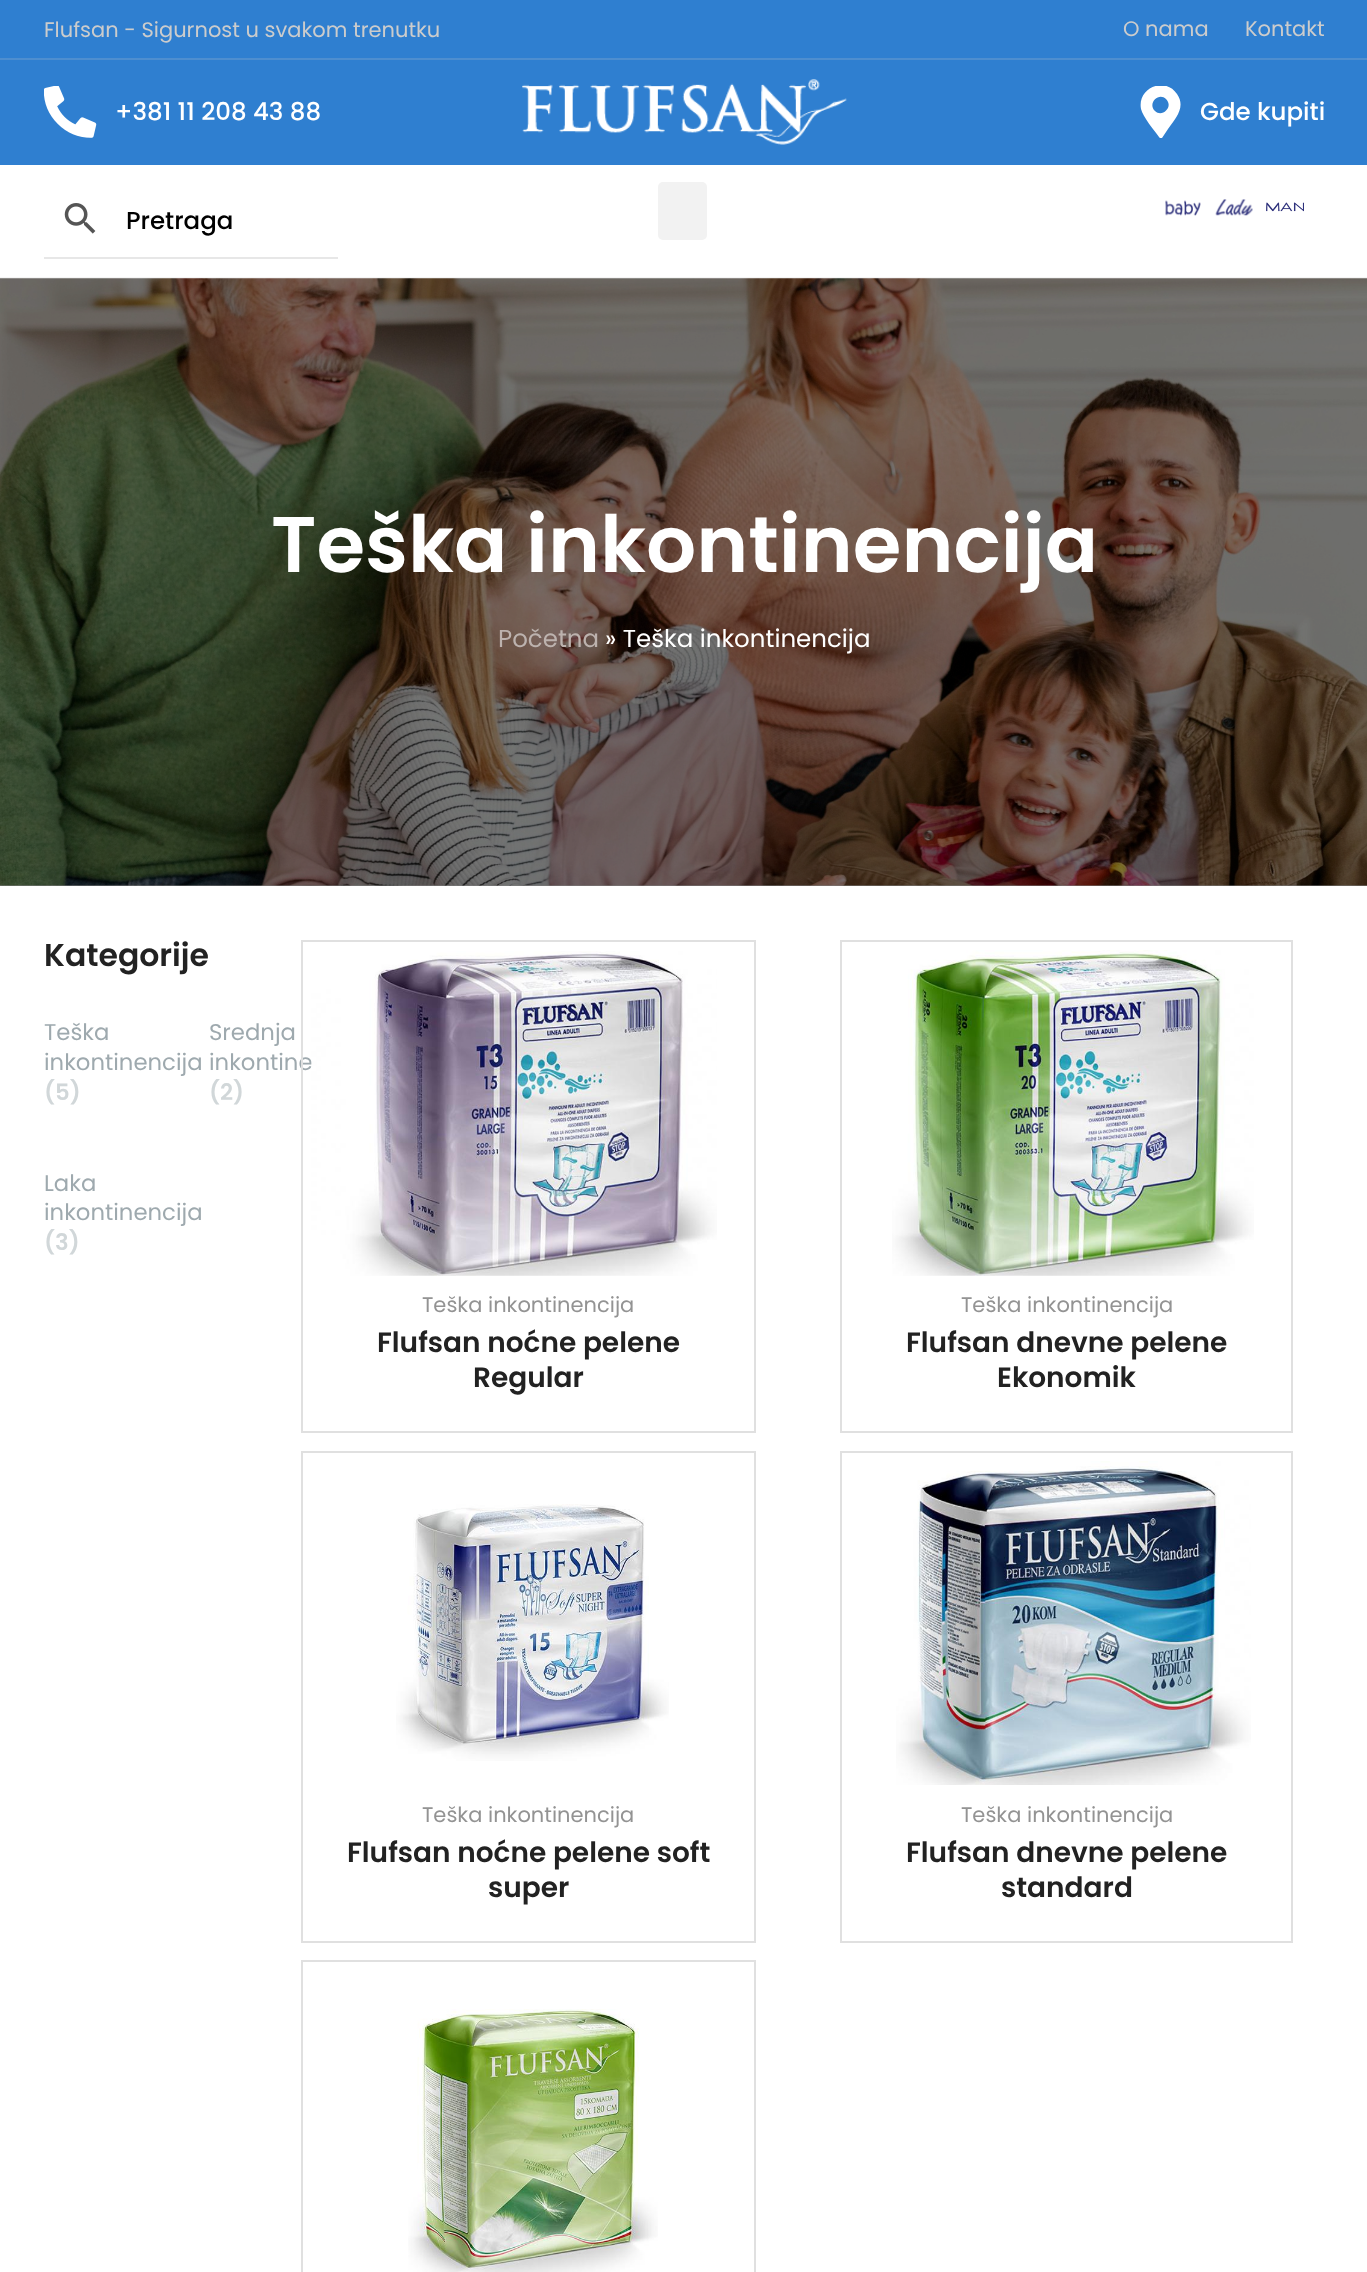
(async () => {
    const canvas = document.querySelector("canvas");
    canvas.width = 1367;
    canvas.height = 2272;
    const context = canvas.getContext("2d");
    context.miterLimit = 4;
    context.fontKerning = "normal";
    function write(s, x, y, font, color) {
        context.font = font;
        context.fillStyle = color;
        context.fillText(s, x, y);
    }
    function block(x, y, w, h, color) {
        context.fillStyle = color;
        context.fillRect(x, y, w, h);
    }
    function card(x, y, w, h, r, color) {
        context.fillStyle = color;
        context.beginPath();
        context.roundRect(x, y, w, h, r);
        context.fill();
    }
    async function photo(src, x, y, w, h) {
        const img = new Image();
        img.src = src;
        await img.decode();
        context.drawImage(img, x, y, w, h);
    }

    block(0, 0, 1367, 2272, "rgb(255, 255, 255)");
    block(0, 885, 1367, 1, "rgb(128, 128, 128)");
    block(0, 0, 1367, 58, "rgb(47, 127, 208)");
    block(0, 58, 1367, 2, "rgb(78, 142, 207)");
    write("Flufsan - Sigurnost u svakom trenutku", 44, 37, "21px Poppins", "rgb(204, 204, 204)");
    write("O nama", 1123, 36, "21px Poppins", "rgb(204, 204, 204)");
    write("Kontakt", 1245, 36, "21px Poppins", "rgb(204, 204, 204)");
    block(0, 60, 1367, 105, "rgb(47, 127, 208)");
    await photo("media/1.png", 44, 86, 53, 52);
    write("+381 11 208 43 88", 115, 120, "500 24.5px Poppins", "rgb(255, 255, 255)");
    await photo("media/2.png", 522, 79, 325, 66);
    context.save();
    context.beginPath();
    context.rect(921, 86, 404, 52);
    context.clip();
    context.beginPath();
    context.moveTo(1159, 137);
    context.bezierCurveTo(1154, 130, 1143, 117, 1141, 109);
    context.bezierCurveTo(1137, 88, 1165, 76, 1177, 94);
    context.bezierCurveTo(1186, 107, 1176, 118, 1168, 129);
    context.lineTo(1162, 138);
    context.bezierCurveTo(1161, 138, 1159, 138, 1159, 137);
    context.closePath();
    context.moveTo(1155, 111);
    context.bezierCurveTo(1162, 118, 1174, 107, 1166, 99);
    context.bezierCurveTo(1159, 92, 1147, 103, 1155, 111);
    context.closePath();
    context.fill();
    context.restore();
    write("Gde kupiti", 1200, 120, "500 24.5px Poppins", "rgb(255, 255, 255)");
    block(0, 277, 1367, 2, "rgb(245, 245, 245)");
    card(658, 182, 49, 58, 5, "rgb(242, 242, 242)");
    await photo("media/3.png", 1165, 200, 36, 16);
    await photo("media/4.png", 1215, 199, 38, 17);
    await photo("media/5.png", 1266, 202, 38, 10);
    block(44, 257, 294, 2, "rgb(231, 231, 231)");
    await photo("media/6.png", 64, 203, 32, 31);
    write("Pretraga", 126, 229, "500 24.5px Poppins", "rgb(0, 0, 0)");
    await photo("media/7.png", 0, 278, 1367, 608);
    write("Teška inkontinencija", 271, 572, "600 78.75px Poppins", "rgb(255, 255, 255)");
    write("Početna", 498, 647, "24.5px Poppins", "rgb(188, 178, 174)");
    write("» Teška inkontinencija", 605, 647, "24.5px Poppins", "rgb(255, 255, 255)");
    write("Kategorije", 44, 966, "600 31.5px Poppins", "rgb(34, 34, 34)");
    write("Teška", 44, 1040, "22.75px Poppins", "rgb(158, 169, 174)");
    write("inkontinencija", 44, 1070, "22.75px Poppins", "rgb(158, 169, 174)");
    write("(5)", 44, 1100, "600 22.75px Poppins", "rgb(209, 215, 217)");
    write("Srednja", 209, 1040, "22.75px Poppins", "rgb(158, 169, 174)");
    write("inkontine", 209, 1070, "22.75px Poppins", "rgb(158, 169, 174)");
    write("(2)", 209, 1100, "600 22.75px Poppins", "rgb(209, 215, 217)");
    write("Laka", 44, 1191, "22.75px Poppins", "rgb(158, 169, 174)");
    write("inkontinencija", 44, 1220, "22.75px Poppins", "rgb(158, 169, 174)");
    write("(3)", 44, 1250, "600 22.75px Poppins", "rgb(209, 215, 217)");
    context.strokeStyle = "rgb(224, 224, 224)";
    context.lineWidth = 2;
    context.strokeRect(302, 941, 453, 491);
    await photo("media/8.png", 311, 951, 406, 325);
    write("Teška inkontinencija", 422, 1312, "21px Poppins", "rgb(147, 147, 147)");
    write("Flufsan noćne pelene", 377, 1352, "600 28px Poppins", "rgb(34, 34, 34)");
    write("Regular", 473, 1387, "600 28px Poppins", "rgb(34, 34, 34)");
    context.strokeRect(841, 941, 451, 491);
    await photo("media/9.png", 892, 950, 362, 326);
    write("Teška inkontinencija", 961, 1312, "21px Poppins", "rgb(147, 147, 147)");
    write("Flufsan dnevne pelene", 906, 1352, "600 28px Poppins", "rgb(34, 34, 34)");
    write("Ekonomik", 997, 1387, "600 28px Poppins", "rgb(34, 34, 34)");
    context.strokeRect(302, 1452, 453, 490);
    await photo("media/10.png", 396, 1504, 273, 257);
    write("Teška inkontinencija", 422, 1822, "21px Poppins", "rgb(147, 147, 147)");
    write("Flufsan noćne pelene soft", 347, 1862, "600 28px Poppins", "rgb(34, 34, 34)");
    write("super", 488, 1897, "600 28px Poppins", "rgb(34, 34, 34)");
    context.strokeRect(841, 1452, 451, 490);
    await photo("media/11.png", 896, 1461, 355, 324);
    write("Teška inkontinencija", 961, 1822, "21px Poppins", "rgb(147, 147, 147)");
    write("Flufsan dnevne pelene", 906, 1862, "600 28px Poppins", "rgb(34, 34, 34)");
    write("standard", 1001, 1897, "600 28px Poppins", "rgb(34, 34, 34)");
    context.strokeRect(302, 1961, 453, 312);
    await photo("media/12.png", 408, 2009, 250, 263);
})();
